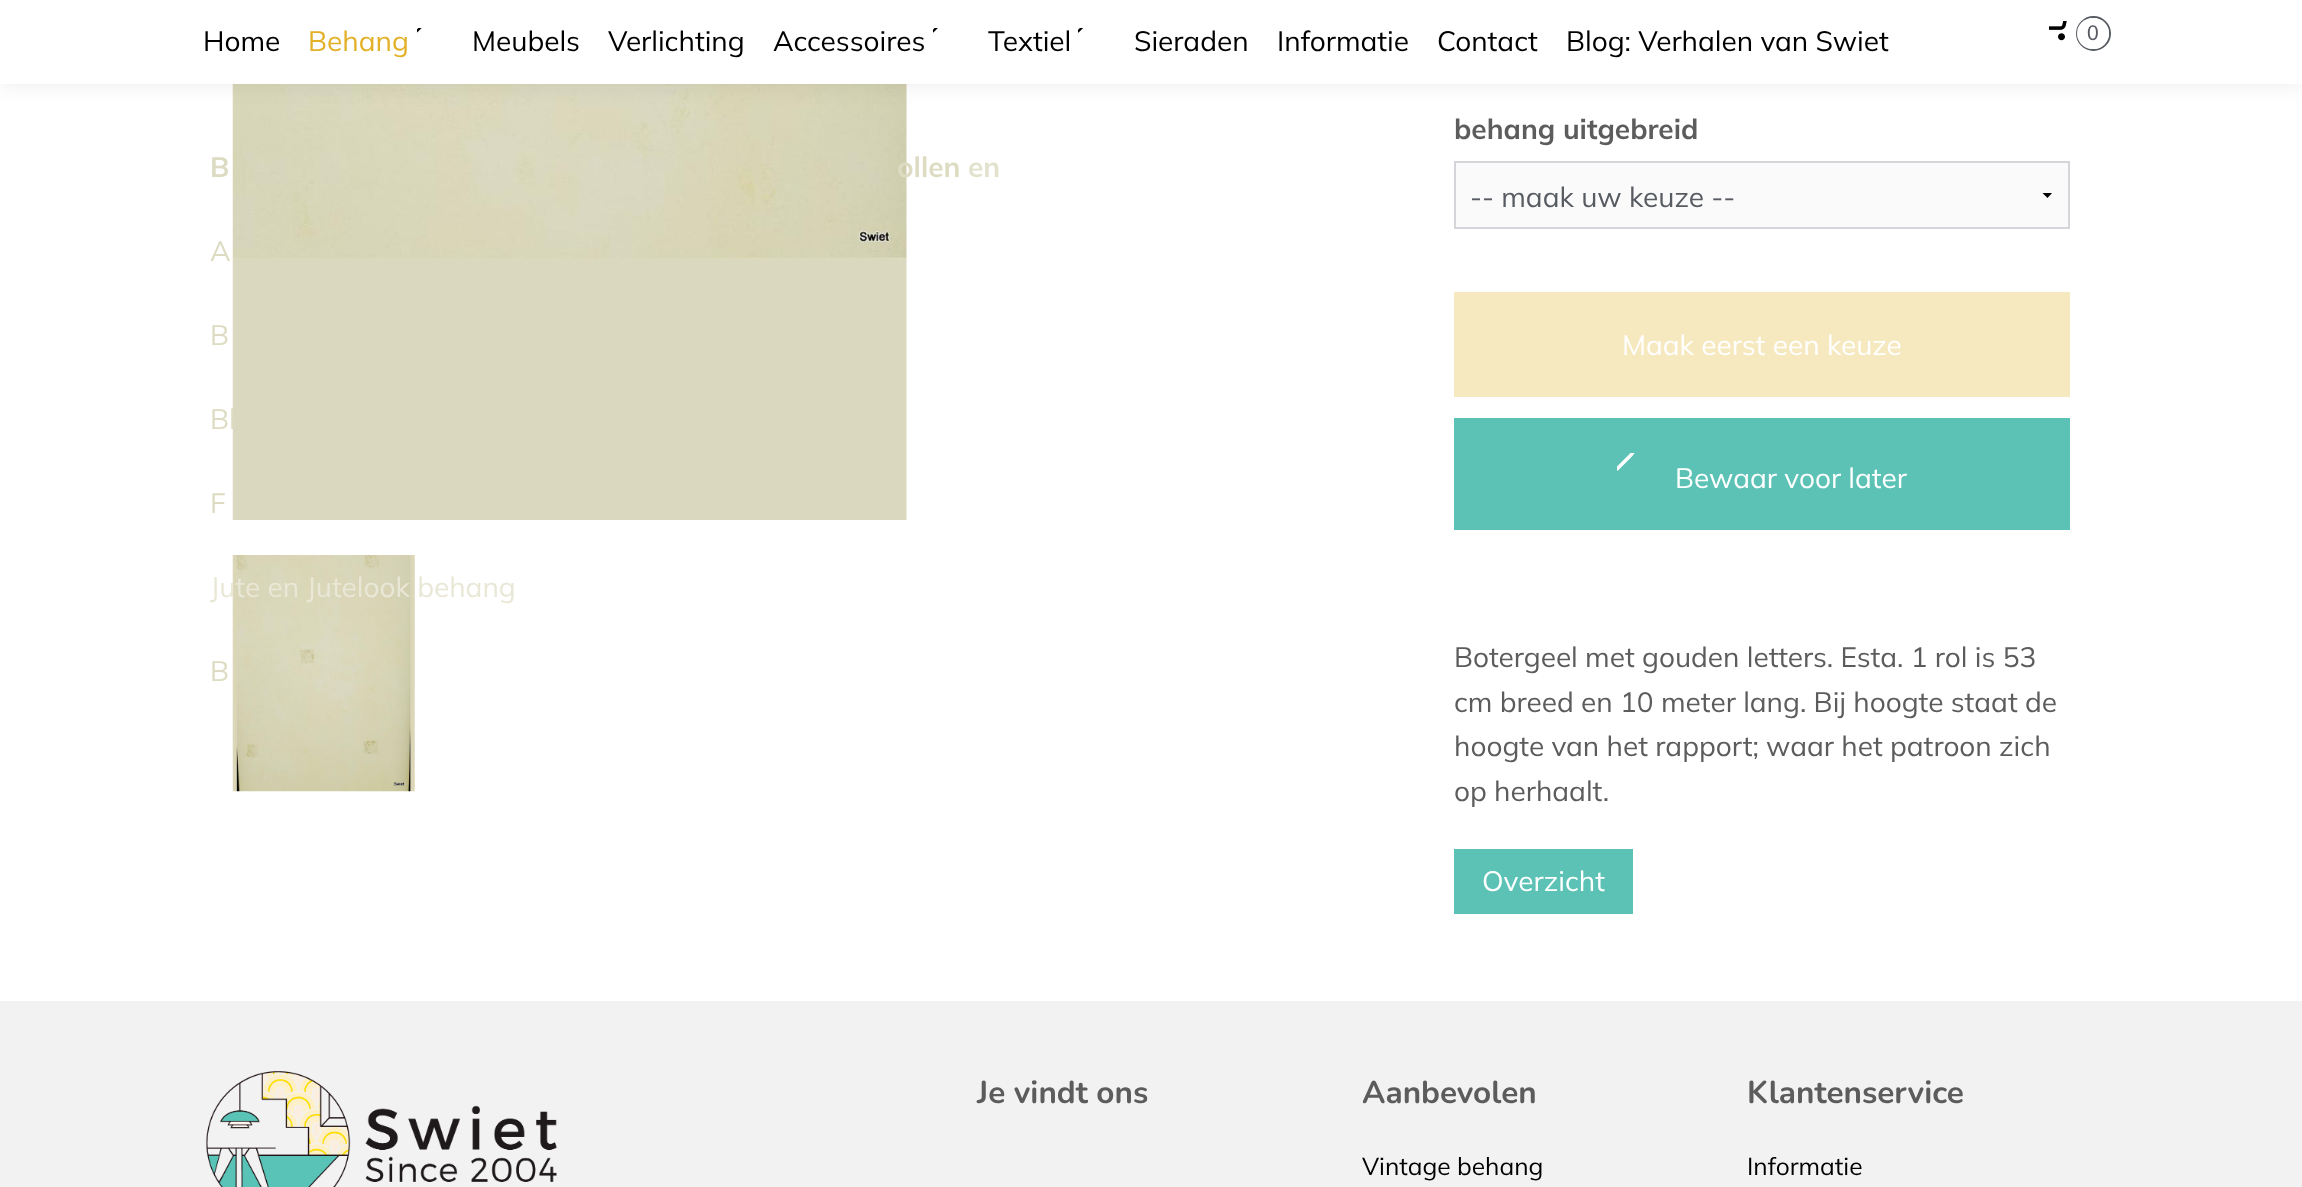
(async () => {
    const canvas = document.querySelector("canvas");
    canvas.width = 2302;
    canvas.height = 1187;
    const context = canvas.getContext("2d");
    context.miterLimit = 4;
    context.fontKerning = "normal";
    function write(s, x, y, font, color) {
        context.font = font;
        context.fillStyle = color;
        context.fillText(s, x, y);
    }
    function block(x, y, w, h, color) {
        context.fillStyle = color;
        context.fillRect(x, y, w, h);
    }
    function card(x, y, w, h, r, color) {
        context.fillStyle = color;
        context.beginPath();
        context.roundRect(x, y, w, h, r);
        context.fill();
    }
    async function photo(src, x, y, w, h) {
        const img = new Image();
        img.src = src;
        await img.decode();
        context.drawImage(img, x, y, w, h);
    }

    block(0, 0, 2302, 1187, "rgb(255, 255, 255)");
    await photo("media/5.png", 232, 84, 675, 436);
    context.fillStyle = "rgba(0, 0, 0, 0.08)";
    context.filter = "blur(10.5px)";
    context.beginPath();
    context.rect(0, 0, 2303, 84);
    context.fill();
    context.filter = "none";
    block(0, 0, 2302, 84, "rgb(255, 255, 255)");
    write("Behang", 308, 51, "28px Mulish", "rgb(226, 177, 40)");
    await photo("media/1.png", 417, 28, 5, 5);
    write("B", 210, 177, "bold 28px Mulish", "rgb(221, 220, 195)");
    write("A", 210, 261, "28px Mulish", "rgb(221, 220, 195)");
    write("B", 210, 345, "28px Mulish", "rgb(221, 220, 195)");
    write("Bl", 210, 429, "28px Mulish", "rgb(221, 220, 195)");
    write("F", 210, 513, "28px Mulish", "rgb(221, 220, 195)");
    await photo("media/6.png", 232, 555, 183, 237);
    write("Jute en Jutelook behang", 210, 597, "28px Mulish", "rgb(233, 231, 214)");
    write("B", 210, 681, "28px Mulish", "rgb(221, 220, 195)");
    write("ollen", 897, 177, "bold 28px Mulish", "rgb(221, 220, 195)");
    write("Home", 203, 51, "28px Mulish", "rgb(0, 0, 0)");
    write("Meubels", 472, 51, "28px Mulish", "rgb(0, 0, 0)");
    write("Verlichting", 608, 51, "28px Mulish", "rgb(0, 0, 0)");
    await photo("media/2.png", 933, 28, 5, 5);
    write("Accessoires", 773, 51, "28px Mulish", "rgb(0, 0, 0)");
    write("en", 968, 177, "bold 28px Mulish", "rgb(227, 226, 205)");
    write("Textiel", 988, 51, "28px Mulish", "rgb(0, 0, 0)");
    await photo("media/3.png", 1078, 28, 5, 5);
    write("Sieraden", 1134, 51, "28px Mulish", "rgb(0, 0, 0)");
    write("Informatie", 1277, 51, "28px Mulish", "rgb(0, 0, 0)");
    write("Contact", 1437, 51, "28px Mulish", "rgb(0, 0, 0)");
    write("Blog: Verhalen van Swiet", 1566, 51, "28px Mulish", "rgb(0, 0, 0)");
    await photo("media/4.png", 2049, 21, 18, 20);
    context.beginPath();
    context.arc(2093.5, 33.5, 16.5, 0, Math.PI * 2);
    context.strokeStyle = "rgb(87, 91, 98)";
    context.lineWidth = 2;
    context.stroke();
    card(2077, 18, 32, 31, 15.5, "rgb(255, 255, 255)");
    write("0", 2087, 40, "21px Liberation Sans", "rgb(87, 91, 98)");
    write("behang uitgebreid", 1454, 139, "bold 28px Mulish", "rgb(92, 92, 92)");
    block(1456, 163, 612, 64, "rgb(250, 250, 250)");
    context.save();
    context.beginPath();
    context.rect(2027, 193, 42, 5);
    context.clip();
    context.fillStyle = "rgb(0, 0, 0)";
    context.beginPath();
    context.moveTo(2052.5, 192.5);
    context.lineTo(2047.5, 198);
    context.lineTo(2042, 192.5);
    context.closePath();
    context.fill();
    context.restore();
    context.strokeStyle = "rgb(211, 213, 217)";
    context.strokeRect(1455, 162, 614, 66);
    write("-- maak uw keuze --", 1470, 207, "28px Mulish", "rgb(87, 91, 98)");
    block(1454, 292, 616, 105, "rgb(246, 232, 191)");
    write("Maak eerst een keuze", 1622, 355, "28px Mulish", "rgb(255, 255, 255)");
    block(1454, 418, 616, 112, "rgb(91, 194, 181)");
    await photo("media/7.png", 1617, 453, 18, 18);
    write("Bewaar voor later", 1675, 488, "28px Mulish", "rgb(255, 255, 255)");
    write("Botergeel met gouden letters. Esta. 1 rol is 53", 1454, 667, "28px Mulish", "rgb(92, 92, 92)");
    write("cm breed en 10 meter lang. Bij hoogte staat de", 1454, 712, "28px Mulish", "rgb(92, 92, 92)");
    write("hoogte van het rapport; waar het patroon zich", 1454, 756, "28px Mulish", "rgb(92, 92, 92)");
    write("op herhaalt.", 1454, 801, "28px Mulish", "rgb(92, 92, 92)");
    block(1454, 849, 179, 65, "rgb(91, 194, 181)");
    write("Overzicht", 1482, 891, "28px Mulish", "rgb(255, 255, 255)");
    block(0, 1001, 2302, 186, "rgb(242, 242, 242)");
    await photo("media/8.png", 206, 1071, 351, 116);
    write("Je vindt ons", 977, 1103, "bold 31.5px Nunito", "rgb(92, 92, 92)");
    write("Aanbevolen", 1362, 1103, "bold 31.5px Nunito", "rgb(92, 92, 92)");
    write("Vintage behang", 1362, 1175, "24.5px Mulish", "rgb(0, 0, 0)");
    write("Klantenservice", 1747, 1103, "bold 31.5px Nunito", "rgb(92, 92, 92)");
    write("Informatie", 1747, 1175, "24.5px Mulish", "rgb(0, 0, 0)");
})();
